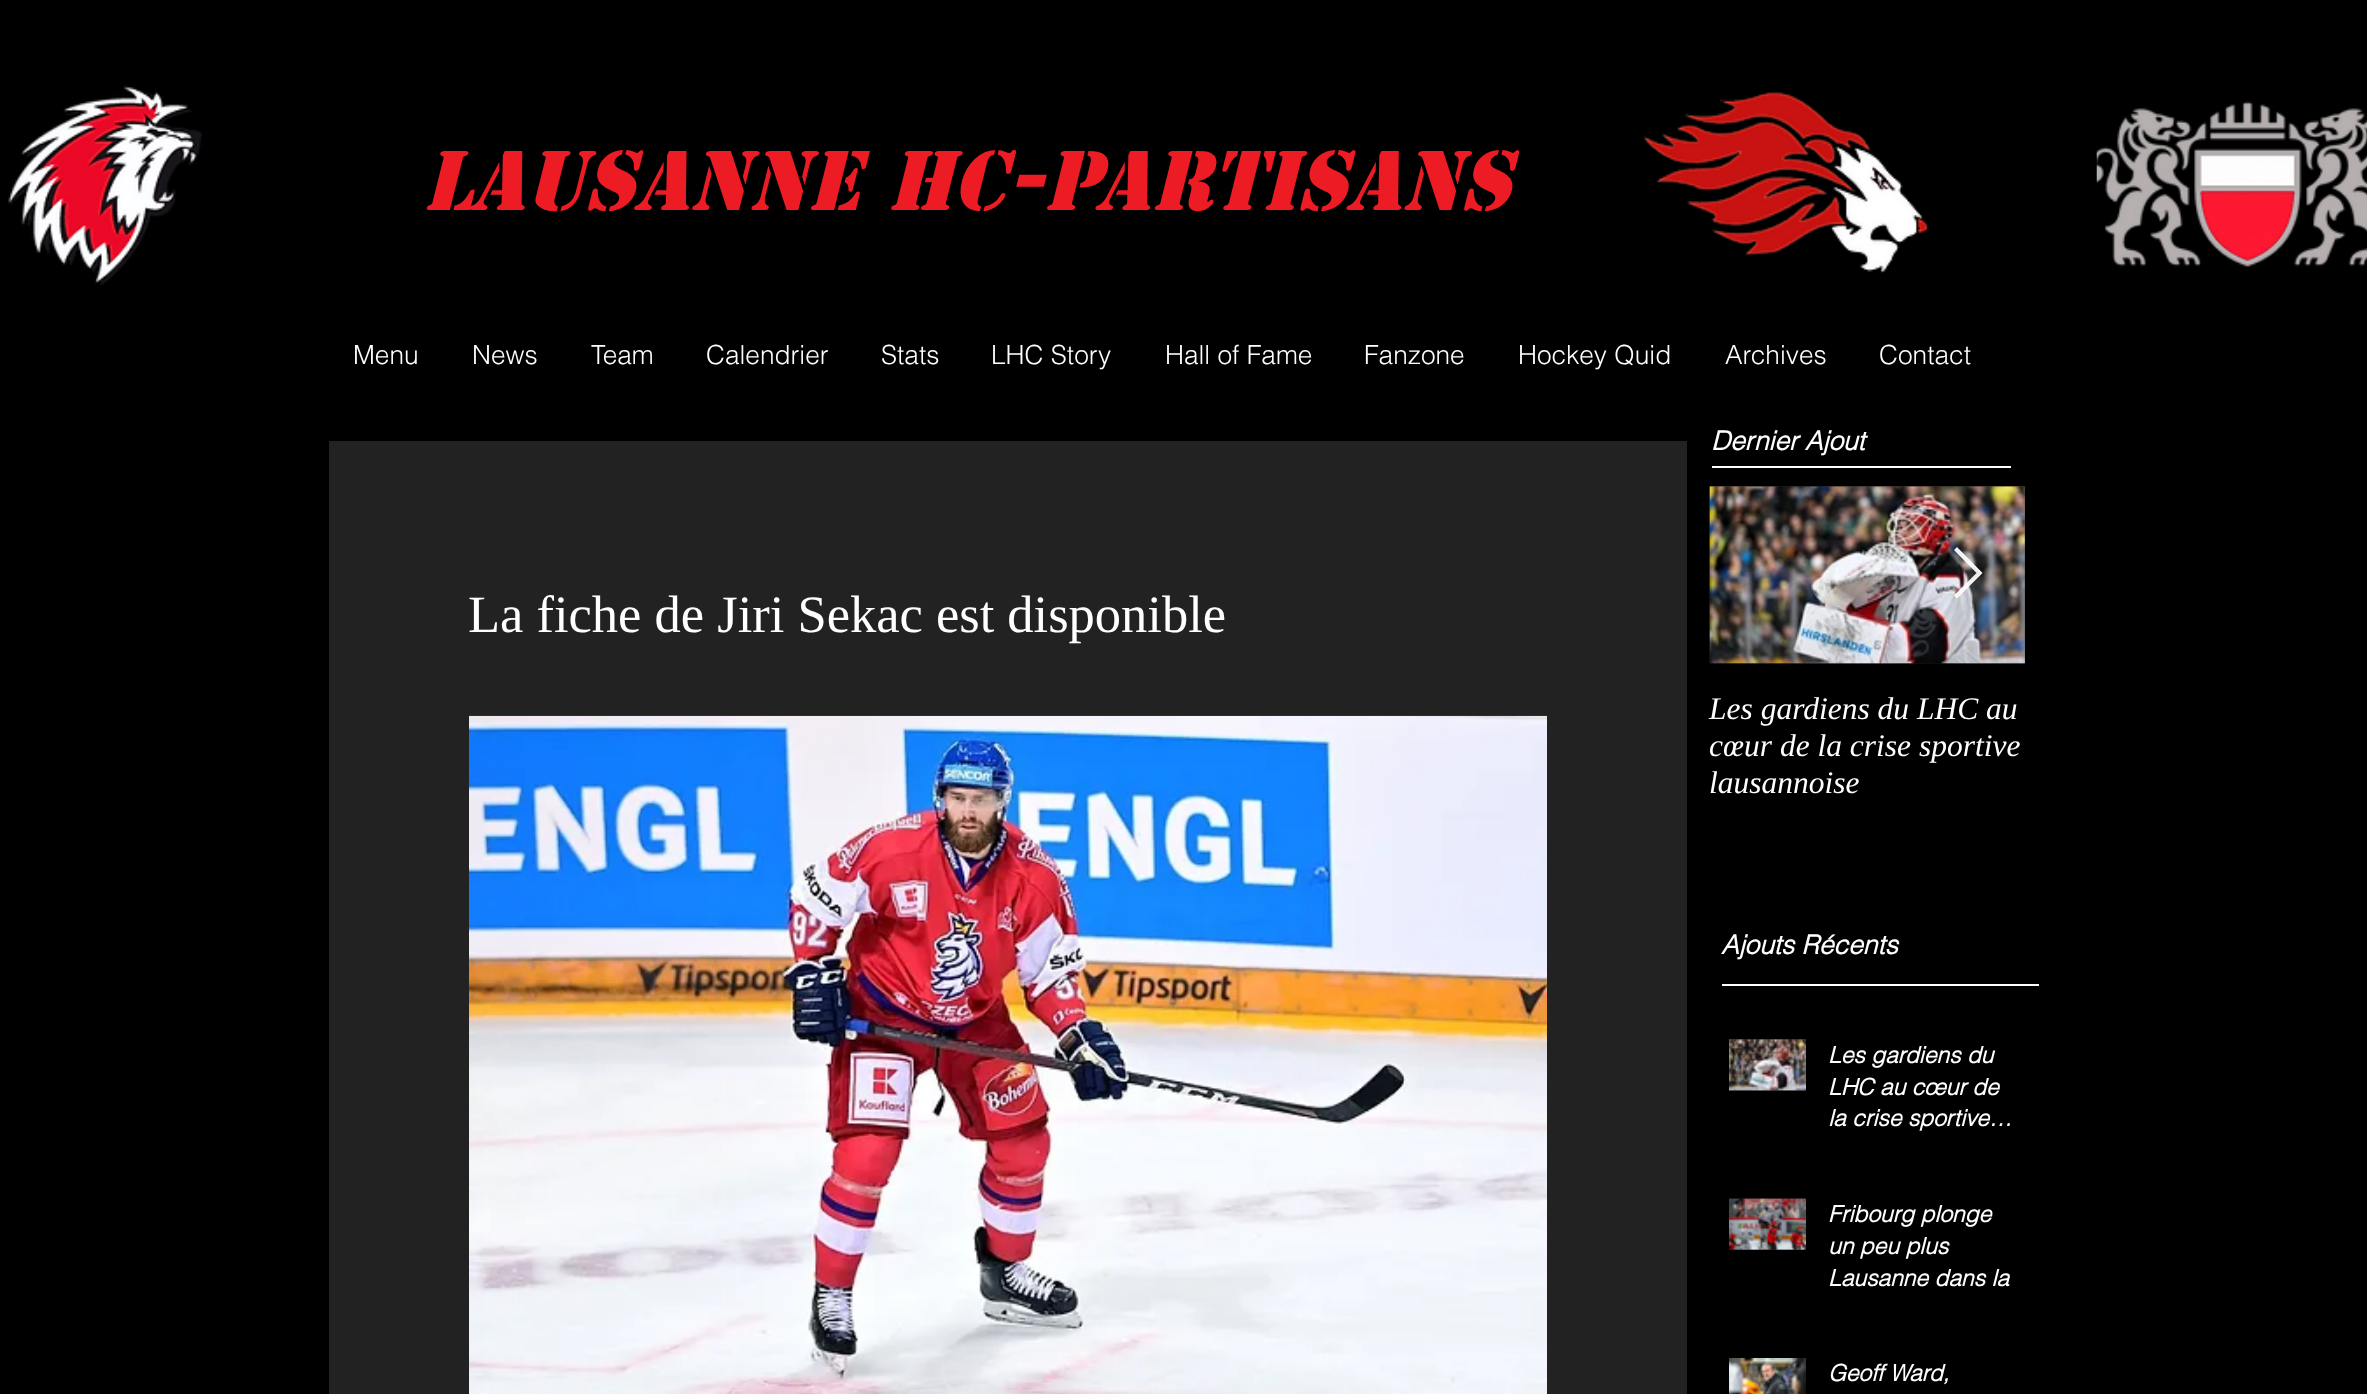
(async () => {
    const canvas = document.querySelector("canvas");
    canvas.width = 2367;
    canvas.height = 1394;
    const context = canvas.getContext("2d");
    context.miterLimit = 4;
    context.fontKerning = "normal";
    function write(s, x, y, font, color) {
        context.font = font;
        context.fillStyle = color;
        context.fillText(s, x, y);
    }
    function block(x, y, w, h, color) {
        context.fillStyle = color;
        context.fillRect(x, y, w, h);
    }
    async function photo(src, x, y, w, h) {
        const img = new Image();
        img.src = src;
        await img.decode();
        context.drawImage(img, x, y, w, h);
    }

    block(0, 0, 2367, 1394, "rgb(0, 0, 0)");
    await photo("media/1.png", 8, 85, 195, 200);
    write("Lausanne HC-Partisans", 423, 210, "italic bold 78.75px 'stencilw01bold'", "rgb(237, 28, 36)");
    await photo("media/2.png", 1643, 91, 286, 183);
    await photo("media/3.png", 2096, 101, 271, 167);
    write("Menu", 353, 364, "300 26.25px helvetica", "rgb(255, 255, 255)");
    write("News", 472, 364, "300 26.25px helvetica", "rgb(255, 255, 255)");
    write("Team", 591, 364, "300 26.25px helvetica", "rgb(255, 255, 255)");
    write("Calendrier", 706, 364, "300 26.25px helvetica", "rgb(255, 255, 255)");
    write("Stats", 881, 364, "300 26.25px helvetica", "rgb(255, 255, 255)");
    write("LHC Story", 991, 364, "300 26.25px helvetica", "rgb(255, 255, 255)");
    write("Hall of Fame", 1165, 364, "300 26.25px helvetica", "rgb(255, 255, 255)");
    write("Fanzone", 1364, 364, "300 26.25px helvetica", "rgb(255, 255, 255)");
    write("Hockey Quid", 1518, 364, "300 26.25px helvetica", "rgb(255, 255, 255)");
    write("Archives", 1725, 364, "300 26.25px helvetica", "rgb(255, 255, 255)");
    write("Contact", 1879, 364, "300 26.25px helvetica", "rgb(255, 255, 255)");
    write("Dernier Ajout", 1711, 450, "italic bold 26.25px helvetica", "rgb(255, 255, 255)");
    block(1712, 466, 299, 2, "rgb(255, 255, 255)");
    block(329, 441, 1358, 953, "rgb(34, 34, 34)");
    write("La fiche de Jiri Sekac est disponible", 468, 632, "52.5px Liberation Serif", "rgb(255, 255, 255)");
    await photo("media/4.png", 469, 715, 1078, 679);
    await photo("media/5.png", 1709, 486, 316, 178);
    await photo("media/6.png", 1709, 486, 316, 178);
    context.fillStyle = "rgba(255, 255, 255, 0.9)";
    context.beginPath();
    context.moveTo(1955, 550);
    context.lineTo(1957, 548);
    context.lineTo(1982, 573);
    context.lineTo(1957, 597);
    context.lineTo(1955, 595);
    context.lineTo(1978, 573);
    context.closePath();
    context.fill();
    context.beginPath();
    context.moveTo(1955, 550);
    context.lineTo(1957, 548);
    context.lineTo(1981.5, 573);
    context.lineTo(1957, 597.5);
    context.lineTo(1955, 595.5);
    context.lineTo(1977.5, 573);
    context.closePath();
    context.strokeStyle = "rgba(255, 255, 255, 0.9)";
    context.lineWidth = 1.4;
    context.stroke();
    write("Les gardiens du LHC au", 1709, 719, "italic 31.5px Liberation Serif", "rgb(255, 255, 255)");
    write("cœur de la crise sportive", 1709, 756, "italic 31.5px Liberation Serif", "rgb(255, 255, 255)");
    write("lausannoise", 1709, 793, "italic 31.5px Liberation Serif", "rgb(255, 255, 255)");
    write("Ajouts Récents", 1721, 954, "italic bold 26.25px helvetica", "rgb(255, 255, 255)");
    block(1722, 984, 317, 2, "rgb(255, 255, 255)");
    await photo("media/7.png", 1729, 1039, 77, 52);
    await photo("media/8.png", 1729, 1039, 77, 52);
    write("Les gardiens du", 1828, 1063, "italic bold 22.75px helvetica", "rgb(255, 255, 255)");
    write("LHC au cœur de", 1828, 1095, "italic bold 22.75px helvetica", "rgb(255, 255, 255)");
    write("la crise sportive…", 1828, 1126, "italic bold 22.75px helvetica", "rgb(255, 255, 255)");
    await photo("media/9.png", 1729, 1198, 77, 52);
    await photo("media/10.png", 1729, 1198, 77, 52);
    write("Fribourg plonge", 1828, 1222, "italic bold 22.75px helvetica", "rgb(255, 255, 255)");
    write("un peu plus", 1828, 1254, "italic bold 22.75px helvetica", "rgb(255, 255, 255)");
    write("Lausanne dans la", 1828, 1286, "italic bold 22.75px helvetica", "rgb(255, 255, 255)");
    await photo("media/11.png", 1729, 1358, 77, 36);
    write("Geoff Ward,", 1828, 1381, "italic bold 22.75px helvetica", "rgb(255, 255, 255)");
})();
